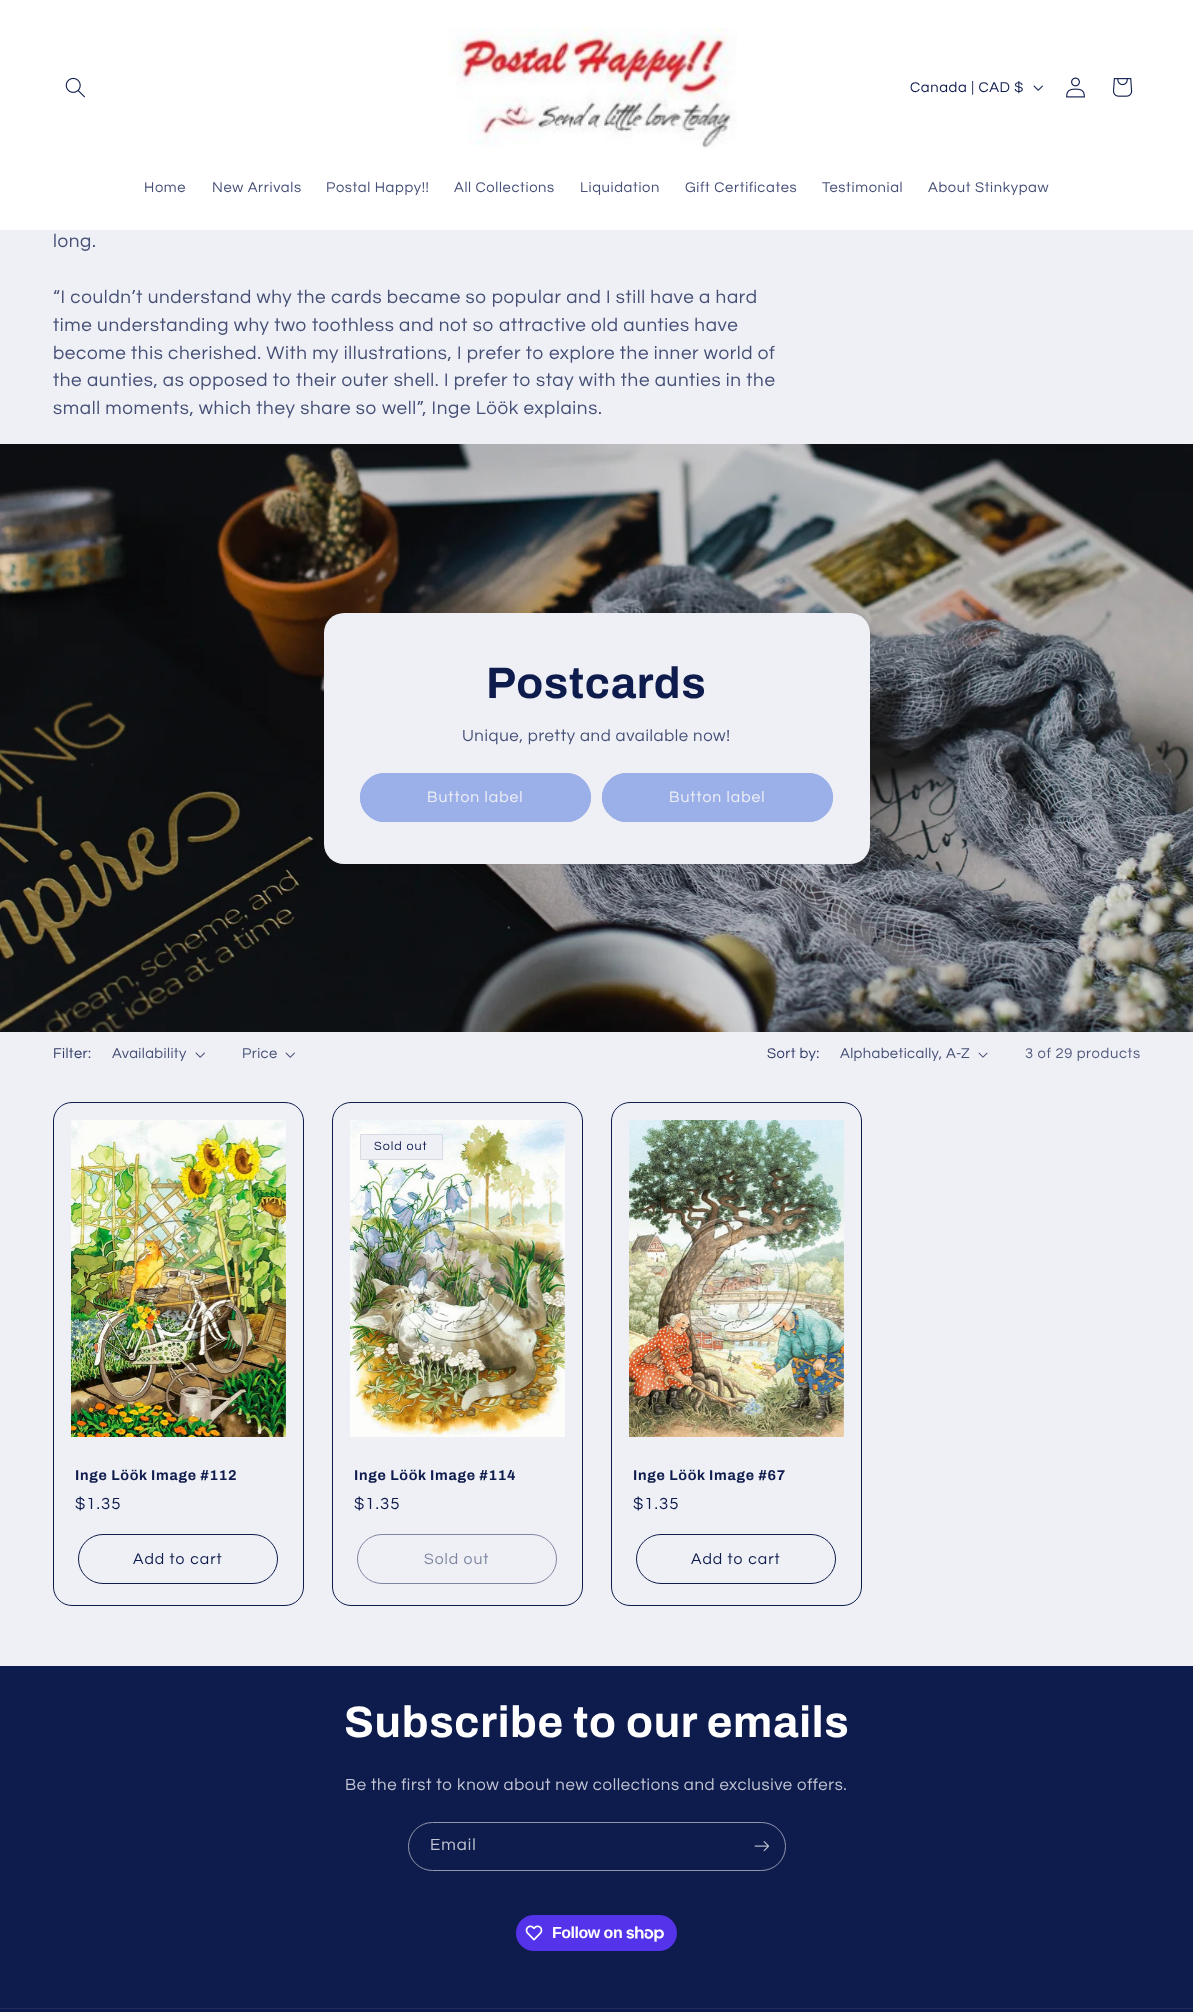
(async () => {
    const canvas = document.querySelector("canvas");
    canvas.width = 1193;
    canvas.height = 2012;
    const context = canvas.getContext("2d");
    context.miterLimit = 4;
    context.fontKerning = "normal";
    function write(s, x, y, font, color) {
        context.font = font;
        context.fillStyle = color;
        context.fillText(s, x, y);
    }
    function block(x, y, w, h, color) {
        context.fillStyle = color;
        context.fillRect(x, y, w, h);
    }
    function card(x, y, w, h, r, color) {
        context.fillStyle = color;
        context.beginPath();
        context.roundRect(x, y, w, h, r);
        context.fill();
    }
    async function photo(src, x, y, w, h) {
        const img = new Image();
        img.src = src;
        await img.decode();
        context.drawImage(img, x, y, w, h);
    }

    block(0, 0, 1193, 2012, "rgb(239, 240, 245)");
    block(0, 0, 1193, 230, "rgb(255, 255, 255)");
    await photo("media/1.png", 65, 77, 20, 21);
    await photo("media/2.png", 448, 27, 289, 121);
    context.letterSpacing = "0.63px";
    write("Canada | CAD $", 910, 92, "14.75px Questrial", "rgb(14, 27, 77)");
    await photo("media/3.png", 1033, 85, 10, 6);
    await photo("media/4.png", 1066, 77, 19, 21);
    await photo("media/5.png", 1113, 78, 20, 19);
    write("Home", 144, 192, "14.75px Questrial", "rgb(70, 80, 119)");
    write("New Arrivals", 212, 192, "14.75px Questrial", "rgb(70, 80, 119)");
    write("Postal Happy!!", 326, 192, "14.75px Questrial", "rgb(70, 80, 119)");
    write("All Collections", 454, 192, "14.75px Questrial", "rgb(70, 80, 119)");
    write("Liquidation", 580, 192, "14.75px Questrial", "rgb(70, 80, 119)");
    write("Gift Certificates", 685, 192, "14.75px Questrial", "rgb(70, 80, 119)");
    write("Testimonial", 822, 192, "14.75px Questrial", "rgb(70, 80, 119)");
    write("About Stinkypaw", 928, 192, "14.75px Questrial", "rgb(70, 80, 119)");
    write("long.", 53, 247, "18.9px Questrial", "rgb(70, 80, 119)");
    write("“I couldn’t understand why the cards became so popular and I still have a hard", 53, 303, "18.9px Questrial", "rgb(70, 80, 119)");
    write("time understanding why two toothless and not so attractive old aunties have", 53, 331, "18.9px Questrial", "rgb(70, 80, 119)");
    write("become this cherished. With my illustrations, I prefer to explore the inner world of", 53, 359, "18.9px Questrial", "rgb(70, 80, 119)");
    write("the aunties, as opposed to their outer shell. I prefer to stay with the aunties in the", 53, 386, "18.9px Questrial", "rgb(70, 80, 119)");
    write("small moments, which they share so well”, Inge Löök explains.", 53, 414, "18.9px Questrial", "rgb(70, 80, 119)");
    await photo("media/6.png", 0, 444, 1193, 588);
    card(324, 613, 546, 251, 20, "rgb(239, 240, 245)");
    context.letterSpacing = "0.7px";
    write("Postcards", 486, 698, "bold 44px Archivo", "rgb(14, 27, 77)");
    context.letterSpacing = "0.63px";
    write("Unique, pretty and available now!", 462, 741, "16.8px Questrial", "rgb(70, 80, 119)");
    card(360, 773, 231, 49, 24.5, "rgb(155, 176, 232)");
    context.beginPath();
    context.roundRect(360.5, 773.5, 230, 48, 24);
    context.strokeStyle = "rgb(155, 176, 232)";
    context.stroke();
    context.letterSpacing = "1px";
    write("Button label", 427, 802, "15.75px Questrial", "rgb(239, 240, 245)");
    card(602, 773, 231, 49, 24.5, "rgb(155, 176, 232)");
    context.beginPath();
    context.roundRect(602.5, 773.5, 230, 48, 24);
    context.stroke();
    write("Button label", 669, 802, "15.75px Questrial", "rgb(239, 240, 245)");
    context.letterSpacing = "0.4px";
    write("Filter:", 53, 1058, "14.75px Questrial", "rgb(48, 59, 102)");
    write("Availability", 112, 1058, "14.75px Questrial", "rgb(70, 80, 119)");
    await photo("media/7.png", 195, 1052, 10, 6);
    write("Price", 242, 1058, "14.75px Questrial", "rgb(70, 80, 119)");
    await photo("media/7.png", 285, 1052, 10, 6);
    write("Sort by:", 767, 1058, "14.75px Questrial", "rgb(48, 59, 102)");
    write("Alphabetically, A-Z", 840, 1058, "14.75px Questrial", "rgb(70, 80, 119)");
    await photo("media/8.png", 978, 1052, 10, 6);
    context.letterSpacing = "0.63px";
    write("3 of 29 products", 1025, 1058, "14.75px Questrial", "rgb(82, 91, 127)");
    context.beginPath();
    context.roundRect(53.5, 1102.5, 250, 503, 18.5);
    context.strokeStyle = "rgb(14, 27, 77)";
    context.stroke();
    await photo("media/9.png", 71, 1120, 215, 317);
    context.letterSpacing = "0.7px";
    write("Inge Löök Image #112", 75, 1480, "bold 14.25px Archivo", "rgb(14, 27, 77)");
    context.letterSpacing = "1px";
    write("$1.35", 75, 1509, "16.8px Questrial", "rgb(14, 27, 77)");
    context.beginPath();
    context.roundRect(78.5, 1534.5, 199, 49, 24.5);
    context.stroke();
    write("Add to cart", 133, 1564, "15.75px Questrial", "rgb(14, 27, 77)");
    context.beginPath();
    context.roundRect(332.5, 1102.5, 250, 503, 18.5);
    context.stroke();
    await photo("media/10.png", 350, 1120, 215, 317);
    context.fillStyle = "rgb(239, 240, 245)";
    context.beginPath();
    context.rect(360.5, 1134.5, 82, 25);
    context.fill();
    context.strokeStyle = "rgb(216, 219, 228)";
    context.stroke();
    write("Sold out", 374, 1150, "12.5px Questrial", "rgb(14, 27, 77)");
    context.letterSpacing = "0.7px";
    write("Inge Löök Image #114", 354, 1480, "bold 14.25px Archivo", "rgb(14, 27, 77)");
    context.letterSpacing = "1px";
    write("$1.35", 354, 1509, "16.8px Questrial", "rgb(14, 27, 77)");
    context.beginPath();
    context.roundRect(357.5, 1534.5, 199, 49, 24.5);
    context.strokeStyle = "rgb(127, 134, 161)";
    context.stroke();
    write("Sold out", 424, 1564, "15.75px Questrial", "rgb(127, 134, 161)");
    context.beginPath();
    context.roundRect(611.5, 1102.5, 250, 503, 18.5);
    context.strokeStyle = "rgb(14, 27, 77)";
    context.stroke();
    await photo("media/11.png", 629, 1120, 215, 317);
    context.letterSpacing = "0.7px";
    write("Inge Löök Image #67", 633, 1480, "bold 14.25px Archivo", "rgb(14, 27, 77)");
    context.letterSpacing = "1px";
    write("$1.35", 633, 1509, "16.8px Questrial", "rgb(14, 27, 77)");
    context.beginPath();
    context.roundRect(636.5, 1534.5, 199, 49, 24.5);
    context.stroke();
    write("Add to cart", 691, 1564, "15.75px Questrial", "rgb(14, 27, 77)");
    block(0, 1666, 1193, 346, "rgb(14, 27, 77)");
    context.letterSpacing = "0.7px";
    write("Subscribe to our emails", 344, 1737, "bold 44px Archivo", "rgb(255, 255, 255)");
    context.letterSpacing = "0.63px";
    write("Be the first to know about new collections and exclusive offers.", 345, 1790, "16.8px Questrial", "rgb(195, 198, 211)");
    context.beginPath();
    context.roundRect(408.5, 1822.5, 377, 48, 24);
    context.strokeStyle = "rgb(147, 152, 175)";
    context.stroke();
    context.letterSpacing = "1px";
    write("Email", 430, 1850, "16.8px Questrial", "rgb(195, 198, 211)");
    await photo("media/12.png", 754, 1841, 15, 11);
    card(516, 1915, 161, 36, 18, "rgb(84, 51, 235)");
    await photo("media/13.png", 525, 1925, 18, 16);
    context.letterSpacing = "-0.5px";
    write("Follow on", 552, 1938, "bold 16px Liberation Sans", "rgb(255, 255, 255)");
    await photo("media/14.png", 626, 1926, 38, 16);
    block(0, 2008, 1193, 1, "rgb(33, 45, 91)");
})();
